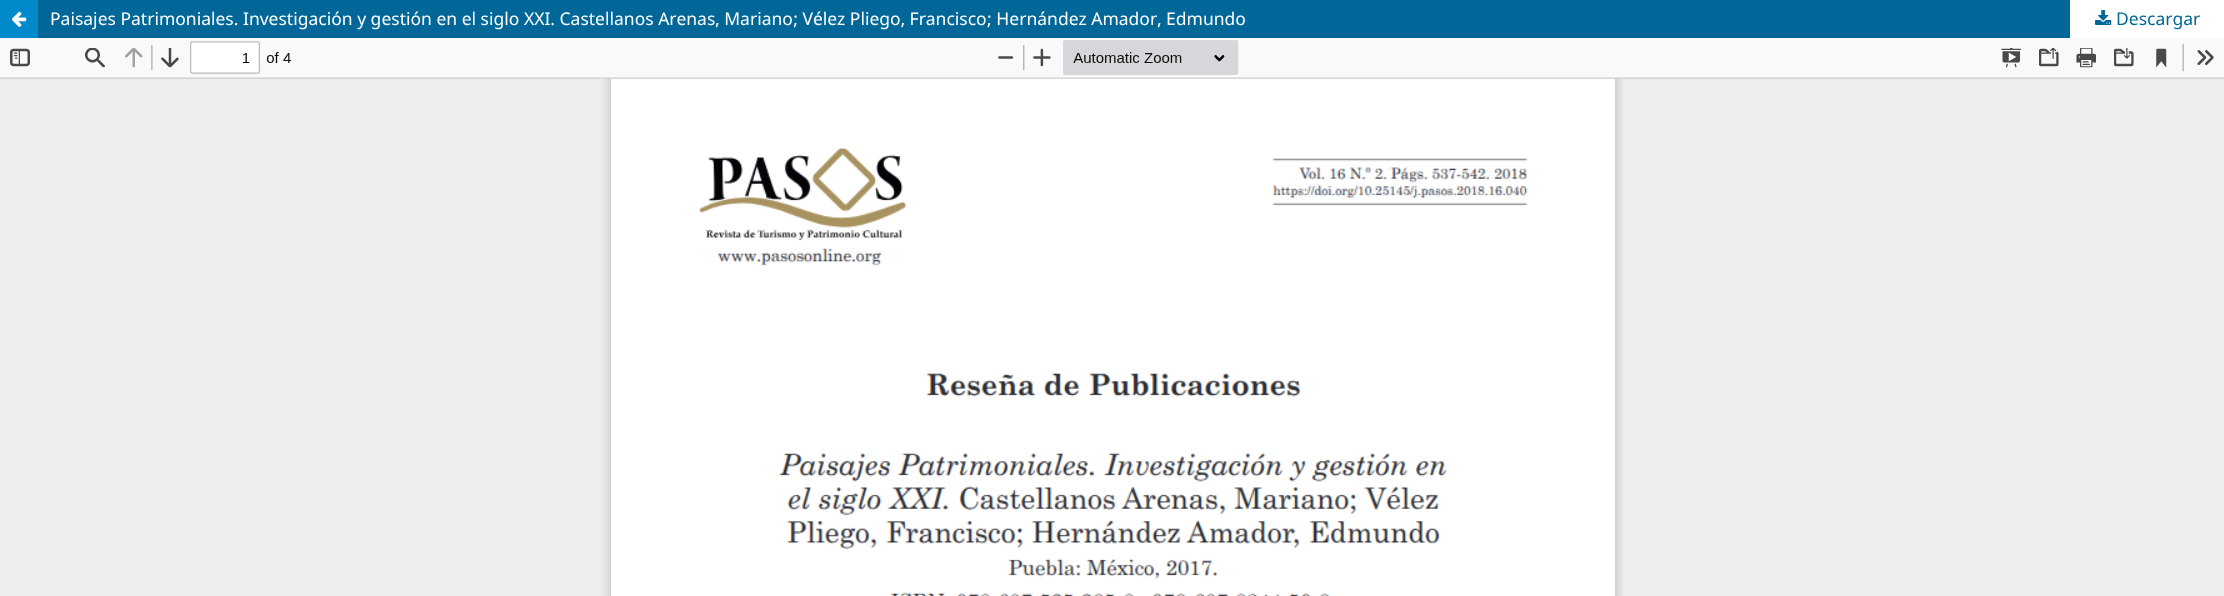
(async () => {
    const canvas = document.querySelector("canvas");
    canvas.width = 2224;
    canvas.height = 596;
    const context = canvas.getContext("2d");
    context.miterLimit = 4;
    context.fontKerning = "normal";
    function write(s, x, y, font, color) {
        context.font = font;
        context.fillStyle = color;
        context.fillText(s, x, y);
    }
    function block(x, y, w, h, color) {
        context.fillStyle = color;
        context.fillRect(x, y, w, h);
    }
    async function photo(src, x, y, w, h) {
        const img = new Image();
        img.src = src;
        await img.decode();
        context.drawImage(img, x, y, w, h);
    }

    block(0, 0, 2224, 596, "rgb(255, 255, 255)");
    block(38, 0, 2032, 38, "rgb(0, 103, 152)");
    block(0, 0, 38, 38, "rgb(0, 138, 203)");
    await photo("media/1.png", 11, 11, 16, 16);
    write("Paisajes Patrimoniales. Investigación y gestión en el siglo XXI. Castellanos Arenas, Mariano; Vélez Pliego, Francisco; Hernández Amador, Edmundo", 50, 25, "17.5px Noto Sans", "rgb(255, 255, 255)");
    await photo("media/2.png", 2095, 10, 17, 15);
    write("Descargar", 2116, 25, "17.5px Noto Sans", "rgb(0, 103, 152)");
    await photo("media/3.png", 0, 38, 2224, 558);
})();
